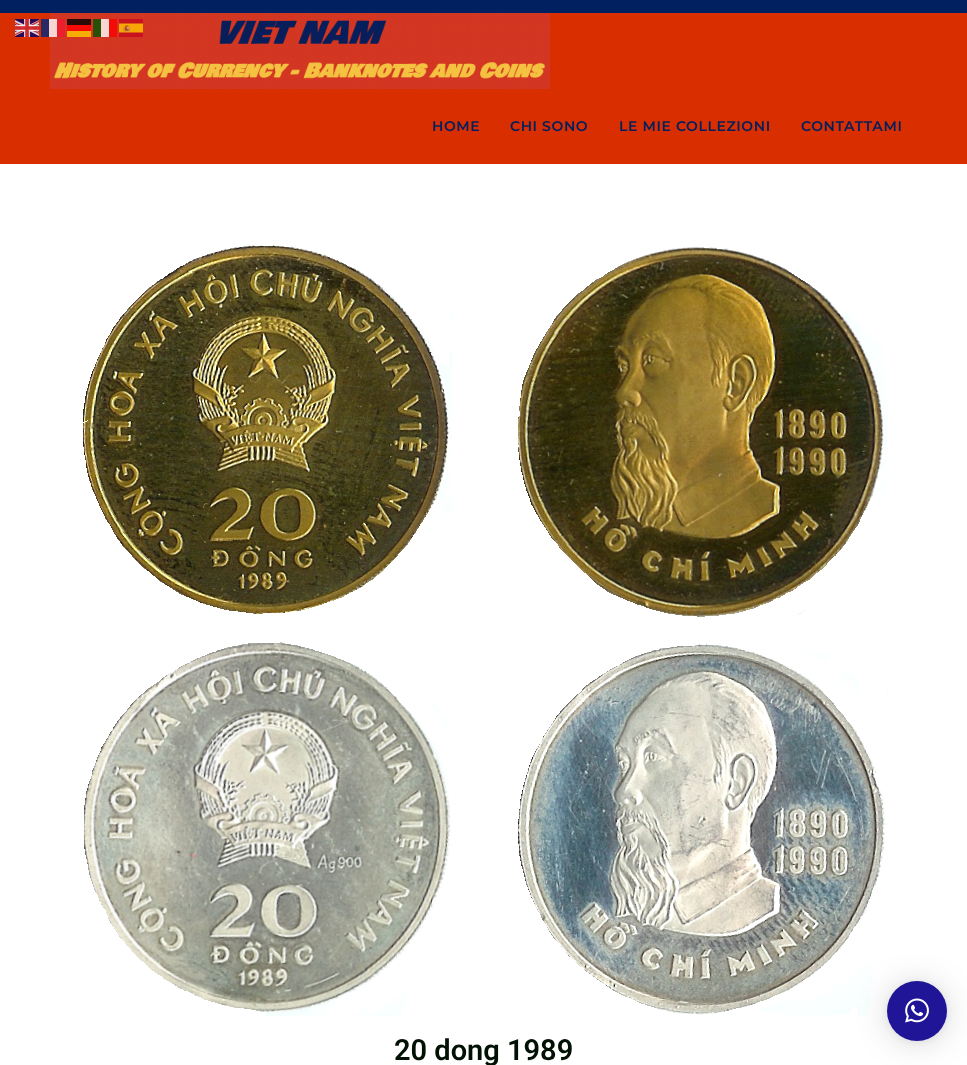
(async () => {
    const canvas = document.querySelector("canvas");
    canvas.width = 967;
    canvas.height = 1065;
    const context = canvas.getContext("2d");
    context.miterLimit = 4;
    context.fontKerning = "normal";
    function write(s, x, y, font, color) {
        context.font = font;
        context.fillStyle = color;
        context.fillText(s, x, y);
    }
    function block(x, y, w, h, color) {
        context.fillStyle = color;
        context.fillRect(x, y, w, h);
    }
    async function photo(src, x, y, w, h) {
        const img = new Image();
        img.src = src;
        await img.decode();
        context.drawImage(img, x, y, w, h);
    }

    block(0, 0, 967, 1065, "rgb(255, 255, 255)");
    block(0, 13, 967, 151, "rgb(216, 46, 0)");
    await photo("media/1.png", 15, 19, 24, 18);
    block(41, 19, 8, 18, "rgb(43, 40, 102)");
    await photo("media/3.png", 50, 13, 500, 76);
    block(49, 19, 8, 18, "rgba(255, 255, 255, 0.8)");
    block(57, 19, 8, 18, "rgb(236, 30, 45)");
    block(67, 19, 24, 6, "rgb(42, 11, 7)");
    block(93, 19, 8, 18, "rgb(42, 80, 7)");
    block(101, 19, 8, 18, "rgb(246, 215, 211)");
    block(109, 19, 8, 18, "rgb(244, 11, 7)");
    await photo("media/2.png", 119, 19, 24, 18);
    block(67, 25, 24, 6, "rgb(246, 11, 7)");
    block(67, 31, 24, 6, "rgb(246, 174, 7)");
    block(0, 0, 967, 13, "rgb(1, 32, 95)");
    context.letterSpacing = "0.6px";
    write("HOME", 432, 131, "600 14px Montserrat", "rgb(1, 32, 95)");
    write("CHI SONO", 510, 131, "600 14px Montserrat", "rgb(1, 32, 95)");
    write("LE MIE COLLEZIONI", 619, 131, "600 14px Montserrat", "rgb(1, 32, 95)");
    write("CONTATTAMI", 801, 131, "600 14px Montserrat", "rgb(1, 32, 95)");
    await photo("media/4.png", 83, 245, 369, 369);
    await photo("media/5.png", 514, 247, 374, 370);
    await photo("media/6.png", 76, 642, 375, 374);
    await photo("media/7.png", 515, 644, 373, 372);
    context.letterSpacing = "0px";
    write("20 dong 1989", 394, 1060, "600 29px Roboto", "rgb(1, 17, 3)");
    context.fillStyle = "rgba(0, 0, 0, 0.16)";
    context.filter = "blur(16px)";
    context.beginPath();
    context.roundRect(887, 983, 60, 60, 30);
    context.fill();
    context.filter = "none";
    context.fillStyle = "rgba(0, 0, 0, 0.06)";
    context.filter = "blur(3px)";
    context.beginPath();
    context.roundRect(887, 982, 60, 60, 30);
    context.fill();
    context.filter = "none";
    context.fillStyle = "rgb(31, 21, 150)";
    context.beginPath();
    context.arc(917, 1011, 30, 0, Math.PI * 2);
    context.fill();
    await photo("media/8.png", 905, 998, 24, 25);
})();
